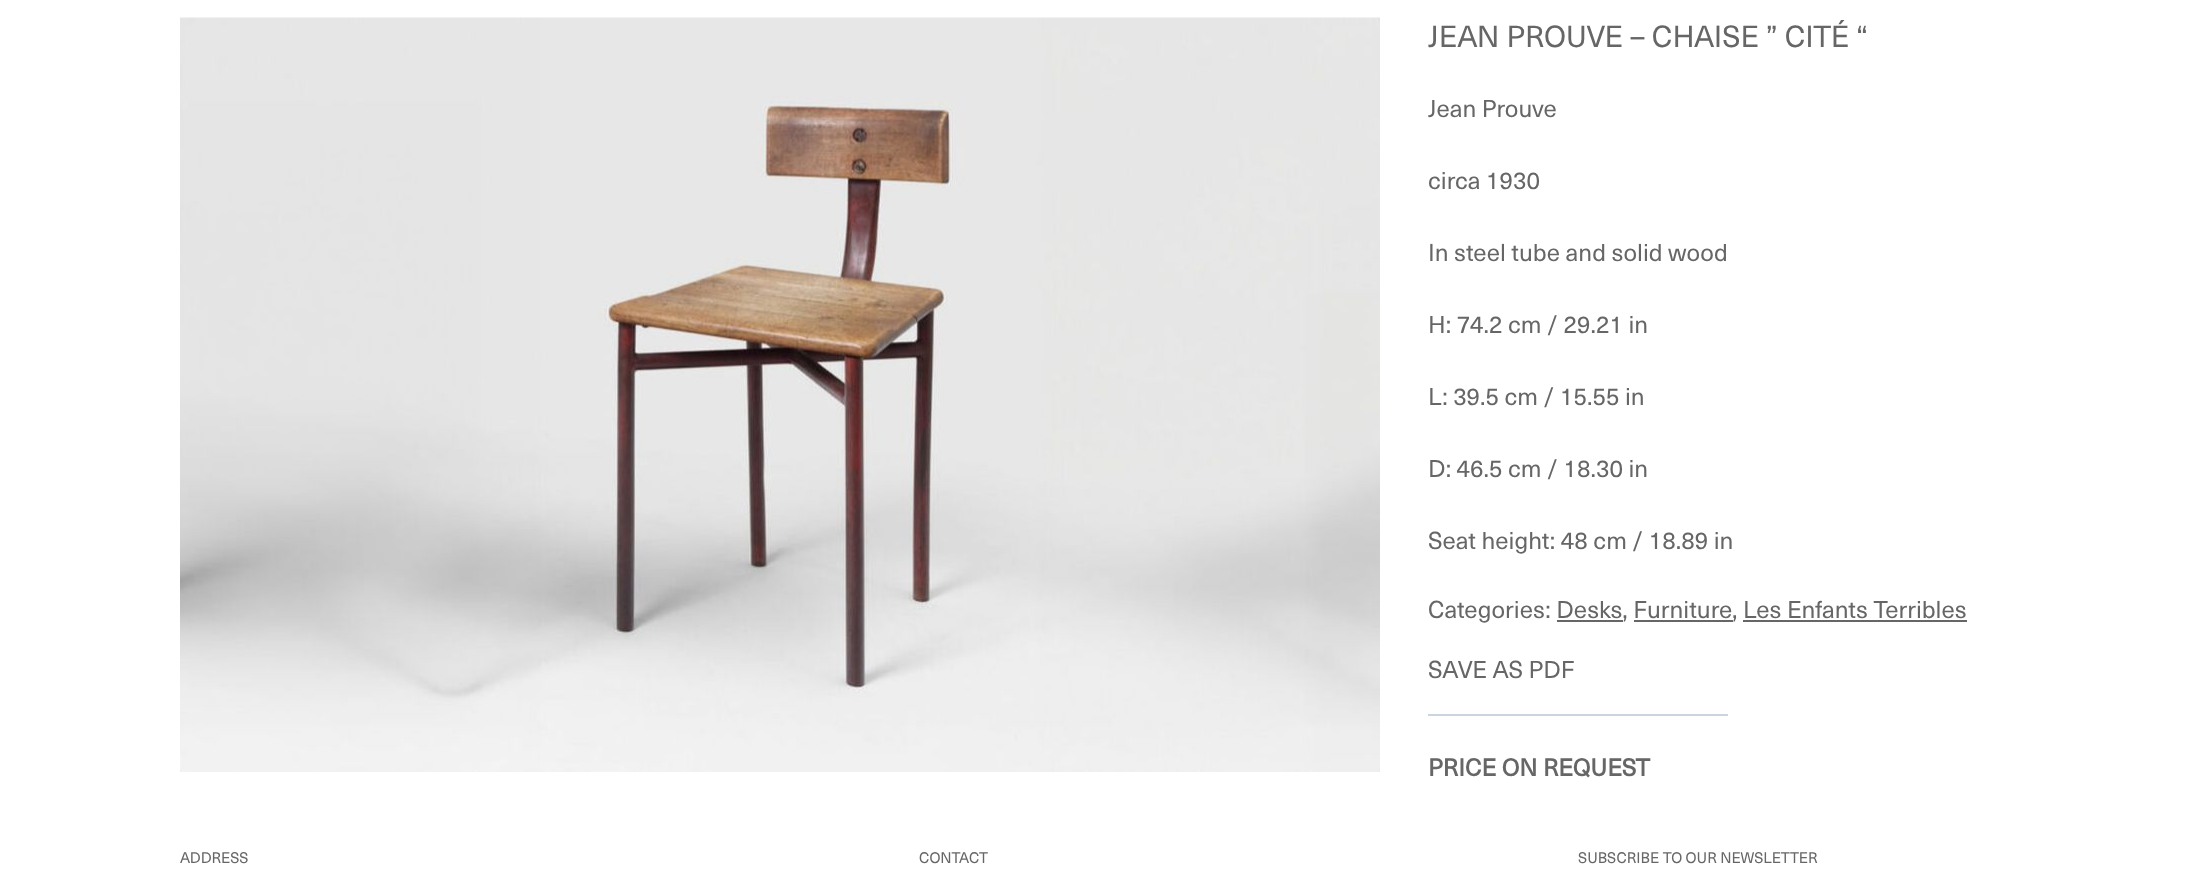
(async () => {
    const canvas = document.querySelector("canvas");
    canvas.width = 2207;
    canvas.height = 869;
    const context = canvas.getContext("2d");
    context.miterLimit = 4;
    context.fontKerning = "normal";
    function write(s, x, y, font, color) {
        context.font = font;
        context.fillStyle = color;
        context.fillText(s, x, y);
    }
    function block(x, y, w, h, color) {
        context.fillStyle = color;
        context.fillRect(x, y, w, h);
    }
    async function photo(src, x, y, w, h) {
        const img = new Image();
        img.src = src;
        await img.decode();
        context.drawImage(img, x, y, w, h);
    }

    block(0, 0, 2207, 869, "rgb(255, 255, 255)");
    await photo("media/1.png", 180, 17, 1200, 755);
    write("JEAN PROUVE – CHAISE ” CITÉ “", 1428, 47, "30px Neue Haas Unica", "rgb(102, 102, 102)");
    write("Jean Prouve", 1428, 117, "24px Neue Haas Unica", "rgb(102, 102, 102)");
    write("circa 1930", 1428, 189, "24px Neue Haas Unica", "rgb(102, 102, 102)");
    write("In steel tube and solid wood", 1428, 261, "24px Neue Haas Unica", "rgb(102, 102, 102)");
    write("H: 74.2 cm / 29.21 in", 1428, 333, "24px Neue Haas Unica", "rgb(102, 102, 102)");
    write("L: 39.5 cm / 15.55 in", 1428, 405, "24px Neue Haas Unica", "rgb(102, 102, 102)");
    write("D: 46.5 cm / 18.30 in", 1428, 477, "24px Neue Haas Unica", "rgb(102, 102, 102)");
    write("Seat height: 48 cm / 18.89 in", 1428, 549, "24px Neue Haas Unica", "rgb(102, 102, 102)");
    write("Categories: Desks, Furniture, Les Enfants Terribles", 1428, 618, "24px Neue Haas Unica", "rgb(102, 102, 102)");
    block(1557, 620, 66, 2, "rgb(102, 102, 102)");
    block(1634, 620, 99, 2, "rgb(102, 102, 102)");
    block(1743, 620, 224, 2, "rgb(102, 102, 102)");
    block(1428, 714, 300, 2, "rgb(203, 213, 225)");
    write("SAVE AS PDF", 1428, 678, "24px Neue Haas Unica", "rgb(102, 102, 102)");
    write("PRICE ON REQUEST", 1428, 776, "bold 24px Neue Haas Unica", "rgb(102, 102, 102)");
    write("ADDRESS", 180, 863, "15px Neue Haas Unica", "rgb(102, 102, 102)");
    write("CONTACT", 919, 863, "15px Neue Haas Unica", "rgb(102, 102, 102)");
    write("SUBSCRIBE TO OUR NEWSLETTER", 1578, 863, "15px Neue Haas Unica", "rgb(102, 102, 102)");
})();
